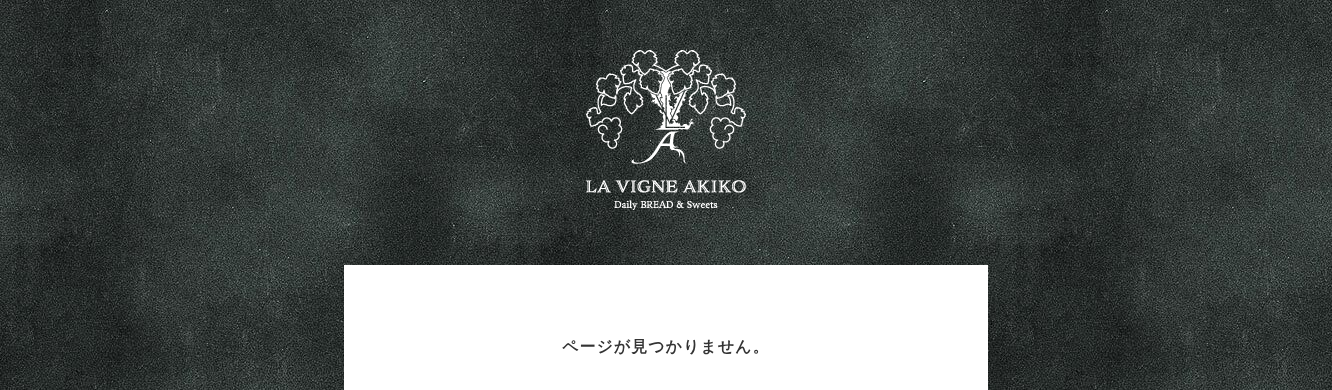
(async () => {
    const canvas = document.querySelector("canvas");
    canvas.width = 1332;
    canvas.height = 390;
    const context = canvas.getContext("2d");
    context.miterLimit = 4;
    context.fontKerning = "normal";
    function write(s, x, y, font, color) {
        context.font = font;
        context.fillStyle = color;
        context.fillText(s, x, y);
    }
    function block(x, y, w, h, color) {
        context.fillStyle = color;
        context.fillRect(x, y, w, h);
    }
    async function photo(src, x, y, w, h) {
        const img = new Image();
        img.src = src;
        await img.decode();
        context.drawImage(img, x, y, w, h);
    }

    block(0, 0, 1332, 390, "rgb(255, 255, 255)");
    await photo("media/1.png", 0, 0, 1332, 390);
    await photo("media/2.png", 586, 50, 160, 160);
    block(344, 265, 644, 125, "rgb(255, 255, 255)");
    context.letterSpacing = "1px";
    write("ページが見つかりません。", 562, 352, "bold 16px WenQuanYi Zen Hei", "rgb(51, 51, 51)");
})();
